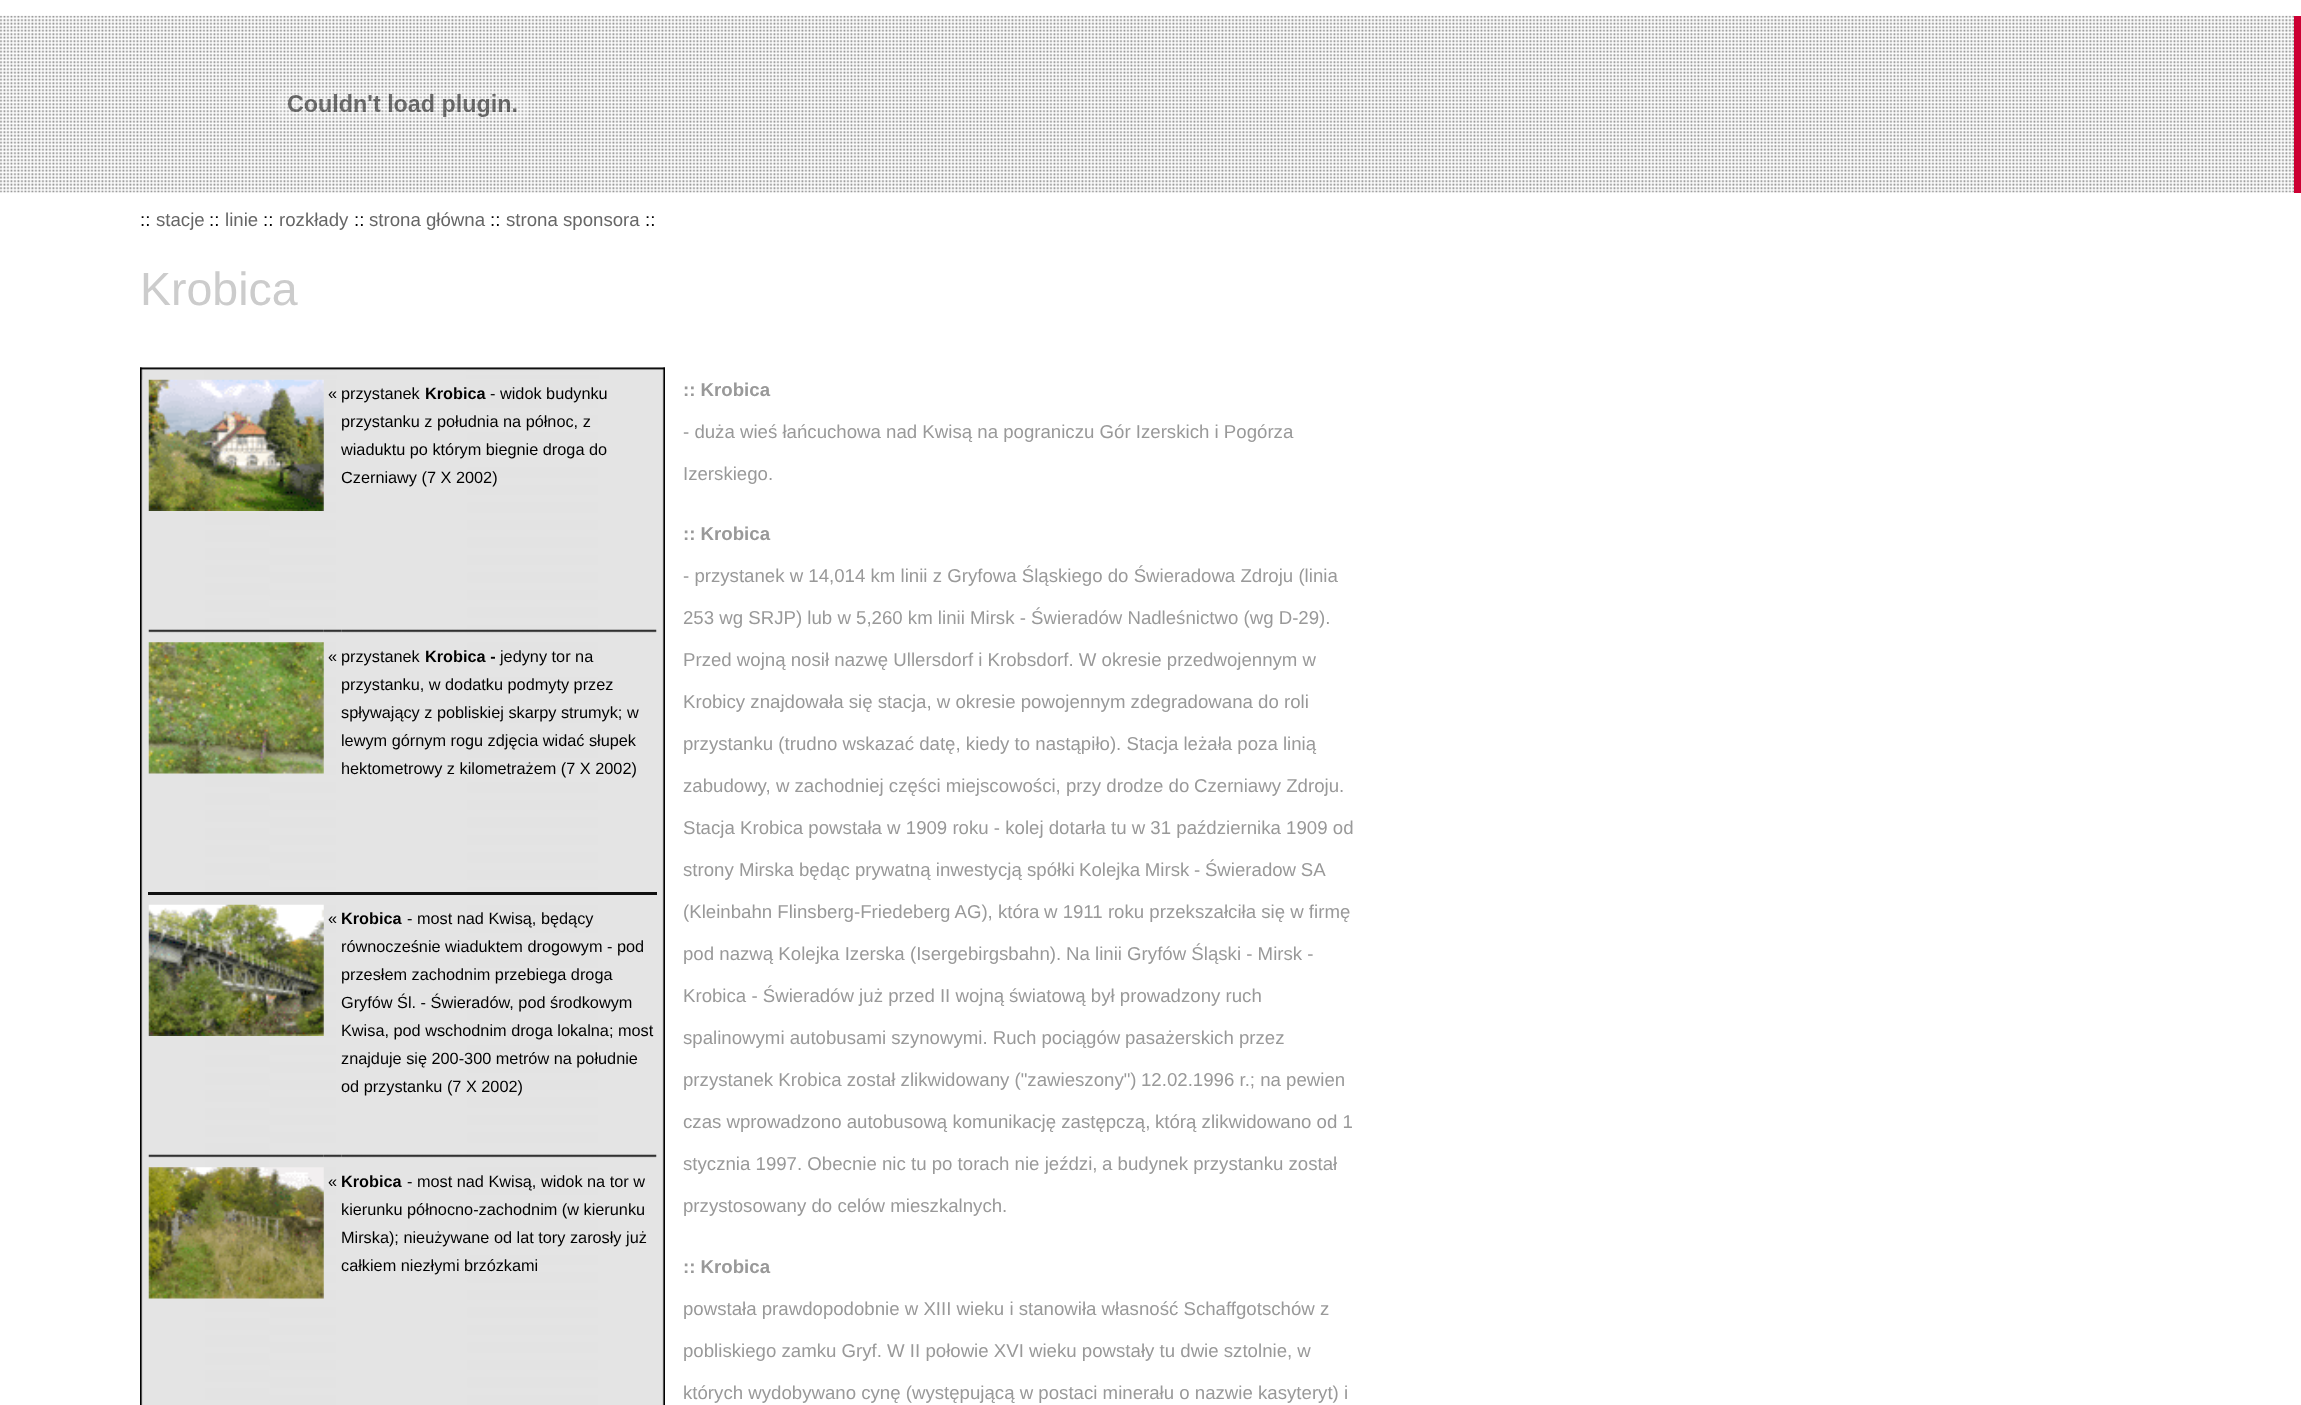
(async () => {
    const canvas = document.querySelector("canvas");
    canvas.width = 2301;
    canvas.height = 1405;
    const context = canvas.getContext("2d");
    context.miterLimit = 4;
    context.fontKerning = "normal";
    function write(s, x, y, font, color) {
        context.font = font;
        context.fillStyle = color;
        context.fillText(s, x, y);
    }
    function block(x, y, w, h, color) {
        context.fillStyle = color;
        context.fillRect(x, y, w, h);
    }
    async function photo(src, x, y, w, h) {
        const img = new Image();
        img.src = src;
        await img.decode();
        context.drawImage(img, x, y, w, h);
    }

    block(0, 0, 2301, 1405, "rgb(255, 255, 255)");
    await photo("media/1.png", 0, 15, 2295, 178);
    await photo("media/2.png", 276, 89, 253, 32);
    block(2294, 16, 7, 177, "rgb(204, 0, 51)");
    write("::", 140, 226, "18.65px Liberation Sans", "rgb(0, 0, 0)");
    write("stacje", 156, 226, "18.65px Liberation Sans", "rgb(102, 102, 102)");
    write("::", 209, 226, "18.65px Liberation Sans", "rgb(0, 0, 0)");
    write("linie", 225, 226, "18.65px Liberation Sans", "rgb(102, 102, 102)");
    write("::", 263, 226, "18.65px Liberation Sans", "rgb(0, 0, 0)");
    write("rozkłady", 279, 226, "18.65px Liberation Sans", "rgb(102, 102, 102)");
    write("::", 354, 226, "18.65px Liberation Sans", "rgb(0, 0, 0)");
    write("strona główna", 369, 226, "18.65px Liberation Sans", "rgb(102, 102, 102)");
    write("::", 490, 226, "18.65px Liberation Sans", "rgb(0, 0, 0)");
    write("strona sponsora", 506, 226, "18.65px Liberation Sans", "rgb(102, 102, 102)");
    write("::", 645, 226, "18.65px Liberation Sans", "rgb(0, 0, 0)");
    write("Krobica", 140, 305, "46.5px Liberation Sans", "rgb(204, 204, 204)");
    await photo("media/3.png", 140, 367, 525, 1038);
    await photo("media/4.png", 140, 367, 525, 13);
    await photo("media/5.png", 148, 629, 176, 4);
    await photo("media/6.png", 148, 379, 176, 132);
    await photo("media/7.png", 323, 629, 19, 4);
    write("«", 328, 399, "16.3px Liberation Sans", "rgb(0, 0, 0)");
    await photo("media/8.png", 341, 629, 316, 4);
    write("przystanek", 341, 399, "16.3px Liberation Sans", "rgb(0, 0, 0)");
    write("Krobica", 425, 399, "bold 16.3px Liberation Sans", "rgb(0, 0, 0)");
    write("- widok budynku", 490, 399, "16.3px Liberation Sans", "rgb(0, 0, 0)");
    write("przystanku z południa na północ, z", 341, 427, "16.3px Liberation Sans", "rgb(0, 0, 0)");
    write("wiaduktu po którym biegnie droga do", 341, 455, "16.3px Liberation Sans", "rgb(0, 0, 0)");
    write("Czerniawy (7 X 2002)", 341, 483, "16.3px Liberation Sans", "rgb(0, 0, 0)");
    block(148, 892, 509, 3, "rgb(16, 16, 16)");
    await photo("media/9.png", 148, 642, 176, 132);
    write("«", 328, 662, "16.3px Liberation Sans", "rgb(0, 0, 0)");
    write("przystanek", 341, 662, "16.3px Liberation Sans", "rgb(0, 0, 0)");
    write("Krobica -", 425, 662, "bold 16.3px Liberation Sans", "rgb(0, 0, 0)");
    write("jedyny tor na", 500, 662, "16.3px Liberation Sans", "rgb(0, 0, 0)");
    write("przystanku, w dodatku podmyty przez", 341, 690, "16.3px Liberation Sans", "rgb(0, 0, 0)");
    write("spływający z pobliskiej skarpy strumyk; w", 341, 718, "16.3px Liberation Sans", "rgb(0, 0, 0)");
    write("lewym górnym rogu zdjęcia widać słupek", 341, 746, "16.3px Liberation Sans", "rgb(0, 0, 0)");
    write("hektometrowy z kilometrażem (7 X 2002)", 341, 774, "16.3px Liberation Sans", "rgb(0, 0, 0)");
    await photo("media/5.png", 148, 1154, 176, 4);
    await photo("media/10.png", 148, 904, 176, 132);
    await photo("media/7.png", 323, 1154, 19, 4);
    write("«", 328, 924, "16.3px Liberation Sans", "rgb(0, 0, 0)");
    await photo("media/8.png", 341, 1154, 316, 4);
    write("Krobica", 341, 924, "bold 16.3px Liberation Sans", "rgb(0, 0, 0)");
    write("- most nad Kwisą, będący", 407, 924, "16.3px Liberation Sans", "rgb(0, 0, 0)");
    write("równocześnie wiaduktem drogowym - pod", 341, 952, "16.3px Liberation Sans", "rgb(0, 0, 0)");
    write("przesłem zachodnim przebiega droga", 341, 980, "16.3px Liberation Sans", "rgb(0, 0, 0)");
    write("Gryfów Śl. - Świeradów, pod środkowym", 341, 1008, "16.3px Liberation Sans", "rgb(0, 0, 0)");
    write("Kwisa, pod wschodnim droga lokalna; most", 341, 1036, "16.3px Liberation Sans", "rgb(0, 0, 0)");
    write("znajduje się 200-300 metrów na południe", 341, 1064, "16.3px Liberation Sans", "rgb(0, 0, 0)");
    write("od przystanku (7 X 2002)", 341, 1092, "16.3px Liberation Sans", "rgb(0, 0, 0)");
    await photo("media/11.png", 148, 1167, 176, 132);
    write("«", 328, 1187, "16.3px Liberation Sans", "rgb(0, 0, 0)");
    write("Krobica", 341, 1187, "bold 16.3px Liberation Sans", "rgb(0, 0, 0)");
    write("- most nad Kwisą, widok na tor w", 407, 1187, "16.3px Liberation Sans", "rgb(0, 0, 0)");
    write("kierunku północno-zachodnim (w kierunku", 341, 1215, "16.3px Liberation Sans", "rgb(0, 0, 0)");
    write("Mirska); nieużywane od lat tory zarosły już", 341, 1243, "16.3px Liberation Sans", "rgb(0, 0, 0)");
    write("całkiem niezłymi brzózkami", 341, 1271, "16.3px Liberation Sans", "rgb(0, 0, 0)");
    write(":: Krobica", 683, 396, "bold 18.65px Liberation Sans", "rgb(153, 153, 153)");
    write("- duża wieś łańcuchowa nad Kwisą na pograniczu Gór Izerskich i Pogórza", 683, 438, "18.65px Liberation Sans", "rgb(153, 153, 153)");
    write("Izerskiego.", 683, 480, "18.65px Liberation Sans", "rgb(153, 153, 153)");
    write(":: Krobica", 683, 540, "bold 18.65px Liberation Sans", "rgb(153, 153, 153)");
    write("- przystanek w 14,014 km linii z Gryfowa Śląskiego do Świeradowa Zdroju (linia", 683, 582, "18.65px Liberation Sans", "rgb(153, 153, 153)");
    write("253 wg SRJP) lub w 5,260 km linii Mirsk - Świeradów Nadleśnictwo (wg D-29).", 683, 624, "18.65px Liberation Sans", "rgb(153, 153, 153)");
    write("Przed wojną nosił nazwę Ullersdorf i Krobsdorf. W okresie przedwojennym w", 683, 666, "18.65px Liberation Sans", "rgb(153, 153, 153)");
    write("Krobicy znajdowała się stacja, w okresie powojennym zdegradowana do roli", 683, 708, "18.65px Liberation Sans", "rgb(153, 153, 153)");
    write("przystanku (trudno wskazać datę, kiedy to nastąpiło). Stacja leżała poza linią", 683, 750, "18.65px Liberation Sans", "rgb(153, 153, 153)");
    write("zabudowy, w zachodniej części miejscowości, przy drodze do", 683, 792, "18.65px Liberation Sans", "rgb(153, 153, 153)");
    write("Czerniawy Zdroju.", 1194, 792, "18.65px Liberation Sans", "rgb(153, 153, 153)");
    write("Stacja Krobica powstała w 1909 roku - kolej dotarła", 683, 834, "18.65px Liberation Sans", "rgb(153, 153, 153)");
    write("tu w 31 października 1909 od", 1111, 834, "18.65px Liberation Sans", "rgb(153, 153, 153)");
    write("strony Mirska będąc prywatną inwestycją spółki", 683, 876, "18.65px Liberation Sans", "rgb(153, 153, 153)");
    context.wordSpacing = "-0.5px";
    write("Kolejka Mirsk - Świeradow SA", 1079, 876, "18.65px Liberation Sans", "rgb(153, 153, 153)");
    context.wordSpacing = "0px";
    write("(Kleinbahn Flinsberg-Friedeberg AG), która", 683, 918, "18.65px Liberation Sans", "rgb(153, 153, 153)");
    write("w 1911 roku przekszałciła się w firmę", 1044, 918, "18.65px Liberation Sans", "rgb(153, 153, 153)");
    write("pod nazwą Kolejka Izerska (Isergebirgsbahn).", 683, 960, "18.65px Liberation Sans", "rgb(153, 153, 153)");
    write("Na linii Gryfów Śląski - Mirsk -", 1066, 960, "18.65px Liberation Sans", "rgb(153, 153, 153)");
    write("Krobica - Świeradów już przed II wojną", 683, 1002, "18.65px Liberation Sans", "rgb(153, 153, 153)");
    write("światową był prowadzony ruch", 1009, 1002, "18.65px Liberation Sans", "rgb(153, 153, 153)");
    write("spalinowymi autobusami szynowymi. Ruch pociągów", 683, 1044, "18.65px Liberation Sans", "rgb(153, 153, 153)");
    write("pasażerskich przez", 1125, 1044, "18.65px Liberation Sans", "rgb(153, 153, 153)");
    write("przystanek Krobica został zlikwidowany (\"zawieszony\")", 683, 1086, "18.65px Liberation Sans", "rgb(153, 153, 153)");
    write("12.02.1996 r.; na pewien", 1141, 1086, "18.65px Liberation Sans", "rgb(153, 153, 153)");
    write("czas wprowadzono autobusową komunikację zastępczą,", 683, 1128, "18.65px Liberation Sans", "rgb(153, 153, 153)");
    write("którą zlikwidowano od 1", 1155, 1128, "18.65px Liberation Sans", "rgb(153, 153, 153)");
    write("stycznia 1997. Obecnie nic tu po torach nie jeździ,", 683, 1170, "18.65px Liberation Sans", "rgb(153, 153, 153)");
    write("a budynek przystanku został", 1102, 1170, "18.65px Liberation Sans", "rgb(153, 153, 153)");
    write("przystosowany do celów mieszkalnych.", 683, 1212, "18.65px Liberation Sans", "rgb(153, 153, 153)");
    write(":: Krobica", 683, 1273, "bold 18.65px Liberation Sans", "rgb(153, 153, 153)");
    write("powstała prawdopodobnie w XIII wieku i stanowiła własność Schaffgotschów z", 683, 1315, "18.65px Liberation Sans", "rgb(153, 153, 153)");
    write("pobliskiego zamku Gryf. W II połowie XVI wieku powstały tu dwie sztolnie, w", 683, 1357, "18.65px Liberation Sans", "rgb(153, 153, 153)");
    write("których wydobywano cynę (występującą w postaci minerału o nazwie kasyteryt) i", 683, 1399, "18.65px Liberation Sans", "rgb(153, 153, 153)");
})();
